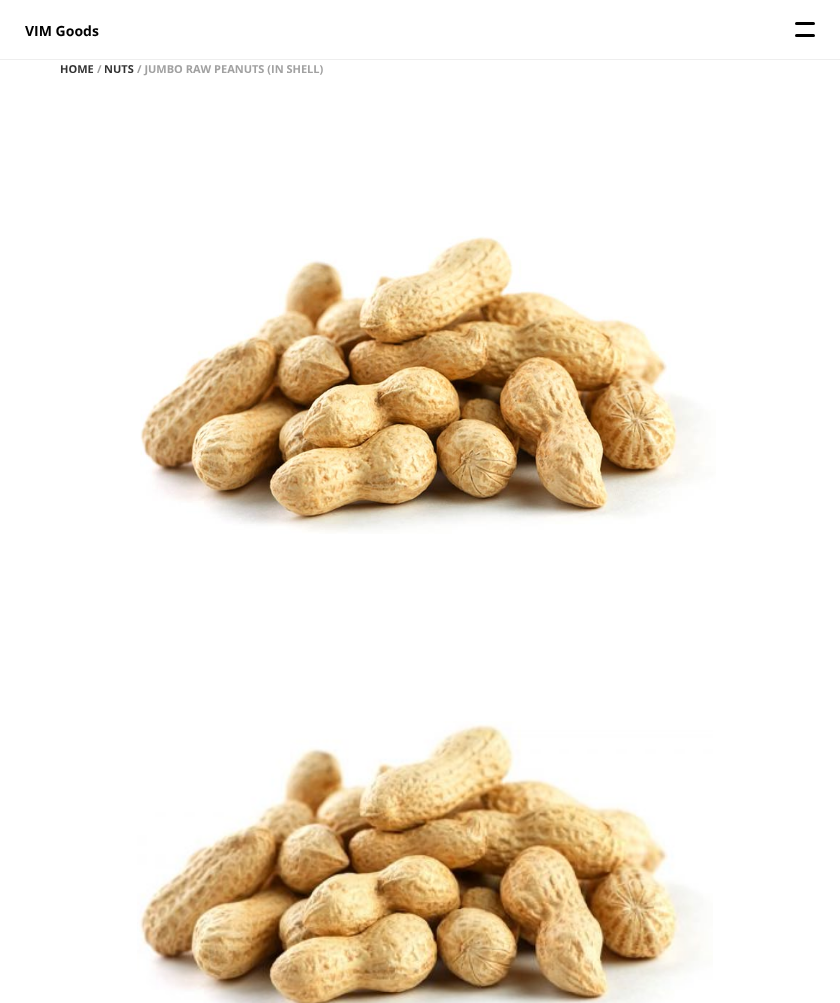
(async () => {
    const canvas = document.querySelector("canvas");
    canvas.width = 840;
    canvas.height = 1003;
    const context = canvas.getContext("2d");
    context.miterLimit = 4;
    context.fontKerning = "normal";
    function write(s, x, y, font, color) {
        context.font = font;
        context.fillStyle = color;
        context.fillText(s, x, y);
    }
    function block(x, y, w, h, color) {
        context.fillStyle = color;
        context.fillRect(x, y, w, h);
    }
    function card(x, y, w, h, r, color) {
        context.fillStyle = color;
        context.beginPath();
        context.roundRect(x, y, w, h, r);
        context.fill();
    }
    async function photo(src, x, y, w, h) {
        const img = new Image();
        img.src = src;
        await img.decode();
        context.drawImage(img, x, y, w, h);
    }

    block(0, 0, 840, 1003, "rgb(255, 255, 255)");
    block(0, 59, 840, 1, "rgb(238, 238, 238)");
    write("VIM Goods", 25, 36, "bold 14px Open Sans", "rgb(0, 0, 0)");
    card(795, 22, 20, 3, 1.5, "rgb(0, 0, 0)");
    card(795, 34, 20, 3, 1.5, "rgb(0, 0, 0)");
    write("HOME", 60, 73, "bold 11px Open Sans", "rgb(51, 51, 51)");
    write("/", 97, 73, "bold 11px Open Sans", "rgb(161, 161, 161)");
    write("NUTS", 104, 73, "bold 11px Open Sans", "rgb(51, 51, 51)");
    write("/ JUMBO RAW PEANUTS (IN SHELL)", 137, 73, "bold 11px Open Sans", "rgb(161, 161, 161)");
    await photo("media/1.png", 140, 236, 576, 298);
    await photo("media/2.png", 137, 721, 576, 282);
})();
